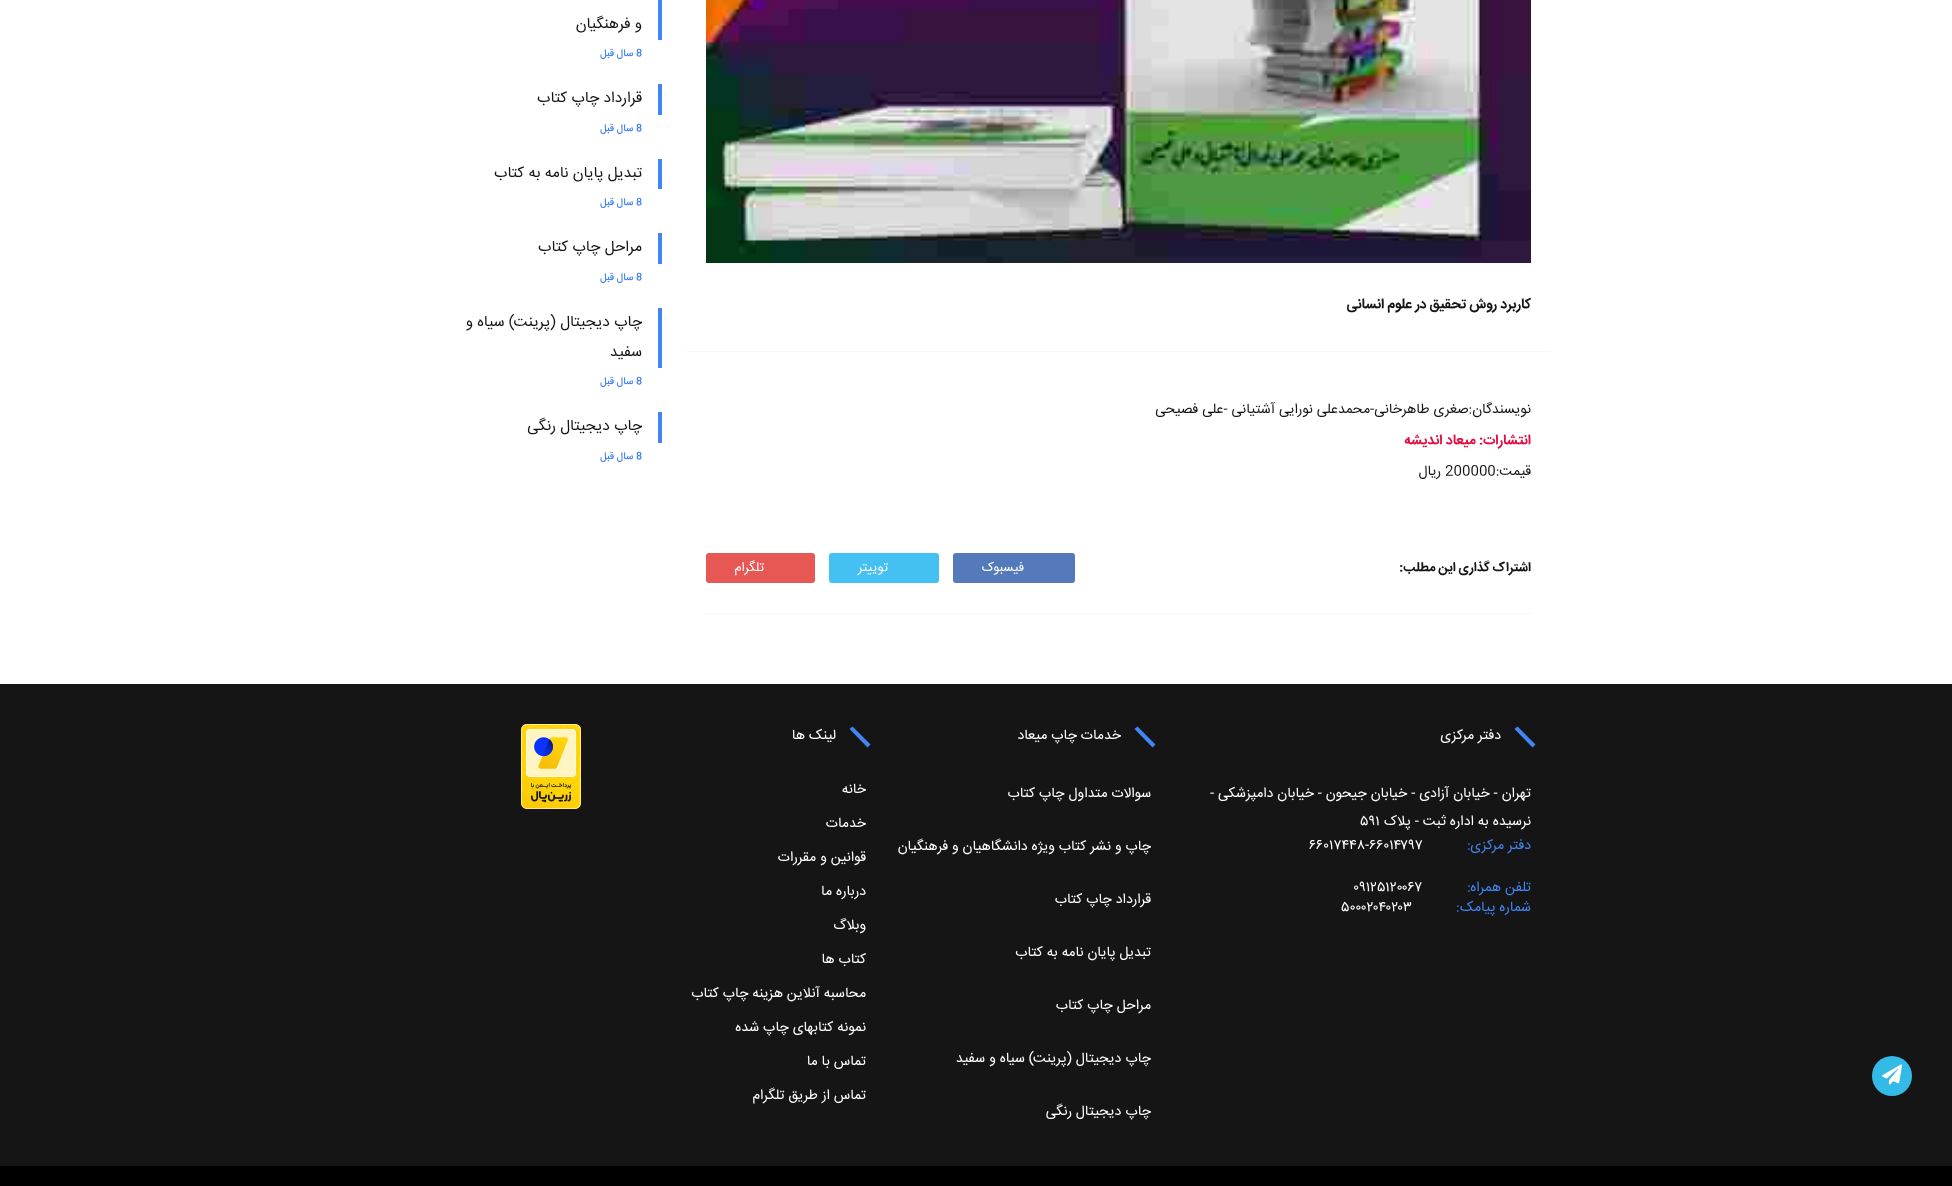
(async () => {
    const canvas = document.querySelector("canvas");
    canvas.width = 1952;
    canvas.height = 1186;
    const context = canvas.getContext("2d");
    context.miterLimit = 4;
    context.fontKerning = "normal";
    function write(s, x, y, font, color) {
        context.font = font;
        context.fillStyle = color;
        context.fillText(s, x, y);
    }
    function block(x, y, w, h, color) {
        context.fillStyle = color;
        context.fillRect(x, y, w, h);
    }
    async function photo(src, x, y, w, h) {
        const img = new Image();
        img.src = src;
        await img.decode();
        context.drawImage(img, x, y, w, h);
    }

    block(0, 0, 1952, 1186, "rgb(255, 255, 255)");
    block(0, 684, 1952, 482, "rgb(21, 21, 21)");
    context.fillStyle = "rgb(52, 186, 231)";
    context.beginPath();
    context.arc(1892, 1076, 20, 0, Math.PI * 2);
    context.fill();
    await photo("media/1.png", 1882, 1064, 20, 21);
    block(706, 613, 825, 1, "rgb(248, 248, 248)");
    await photo("media/2.png", 706, 0, 825, 263);
    context.direction = "rtl";
    write("کاربرد روش تحقیق در علوم انسانی", 1531, 308, "bold 14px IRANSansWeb", "rgb(21, 21, 21)");
    block(686, 351, 865, 1, "rgb(248, 248, 248)");
    write("نویسندگان:صغری طاهرخانی-محمدعلی نورایی آشتیانی -علی فصیحی", 1531, 413, "14px IRANSansWeb", "rgb(21, 21, 21)");
    write("انتشارات: میعاد اندیشه", 1531, 444, "bold 14px IRANSansWeb", "rgb(221, 17, 68)");
    write("قیمت:", 1531, 475, "14px IRANSansWeb", "rgb(21, 21, 21)");
    context.direction = "ltr";
    write("200000", 1445, 475, "14px IRANSansWeb", "rgb(21, 21, 21)");
    context.direction = "rtl";
    write("ریال", 1441, 475, "14px IRANSansWeb", "rgb(21, 21, 21)");
    write("اشتراک گذاری این مطلب:", 1531, 571, "bold 13px IRANSansWeb", "rgb(21, 21, 21)");
    context.fillStyle = "rgb(84, 122, 187)";
    context.beginPath();
    context.roundRect(954.5, 554.5, 119, 27, 1.5);
    context.fill();
    context.strokeStyle = "rgb(84, 122, 187)";
    context.lineWidth = 3;
    context.stroke();
    write("فیسبوک", 1024, 571, "13px IRANSansWeb", "rgb(255, 255, 255)");
    context.fillStyle = "rgb(68, 192, 243)";
    context.beginPath();
    context.roundRect(830.5, 554.5, 107, 27, 1.5);
    context.fill();
    context.strokeStyle = "rgb(68, 192, 243)";
    context.stroke();
    write("توییتر", 888, 571, "13px IRANSansWeb", "rgb(255, 255, 255)");
    context.fillStyle = "rgb(231, 88, 84)";
    context.beginPath();
    context.roundRect(707.5, 554.5, 106, 27, 1.5);
    context.fill();
    context.strokeStyle = "rgb(231, 88, 84)";
    context.stroke();
    write("تلگرام", 764, 571, "13px IRANSansWeb", "rgb(255, 255, 255)");
    block(658, 0, 4, 40, "rgb(66, 133, 244)");
    write("و فرهنگیان", 642, 28, "15.25px IRANSansWeb", "rgb(21, 21, 21)");
    context.direction = "ltr";
    write("8", 636, 56, "500 10px IRANSansWeb", "rgb(66, 133, 244)");
    context.direction = "rtl";
    write("سال قبل", 633, 56, "500 10px IRANSansWeb", "rgb(66, 133, 244)");
    block(658, 84, 4, 31, "rgb(66, 133, 244)");
    write("قرارداد چاپ کتاب", 642, 102, "15.25px IRANSansWeb", "rgb(21, 21, 21)");
    context.direction = "ltr";
    write("8", 636, 131, "500 10px IRANSansWeb", "rgb(66, 133, 244)");
    context.direction = "rtl";
    write("سال قبل", 633, 131, "500 10px IRANSansWeb", "rgb(66, 133, 244)");
    block(658, 159, 4, 30, "rgb(66, 133, 244)");
    write("تبدیل پایان نامه به کتاب", 642, 177, "15.25px IRANSansWeb", "rgb(21, 21, 21)");
    context.direction = "ltr";
    write("8", 636, 205, "500 10px IRANSansWeb", "rgb(66, 133, 244)");
    context.direction = "rtl";
    write("سال قبل", 633, 205, "500 10px IRANSansWeb", "rgb(66, 133, 244)");
    block(658, 233, 4, 31, "rgb(66, 133, 244)");
    write("مراحل چاپ کتاب", 642, 251, "15.25px IRANSansWeb", "rgb(21, 21, 21)");
    context.direction = "ltr";
    write("8", 636, 280, "500 10px IRANSansWeb", "rgb(66, 133, 244)");
    context.direction = "rtl";
    write("سال قبل", 633, 280, "500 10px IRANSansWeb", "rgb(66, 133, 244)");
    block(658, 308, 4, 60, "rgb(66, 133, 244)");
    write("چاپ دیجیتال (پرینت) سیاه و", 642, 326, "15.25px IRANSansWeb", "rgb(21, 21, 21)");
    write("سفید", 642, 356, "15.25px IRANSansWeb", "rgb(21, 21, 21)");
    context.direction = "ltr";
    write("8", 636, 384, "500 10px IRANSansWeb", "rgb(66, 133, 244)");
    context.direction = "rtl";
    write("سال قبل", 633, 384, "500 10px IRANSansWeb", "rgb(66, 133, 244)");
    block(658, 412, 4, 31, "rgb(66, 133, 244)");
    write("چاپ دیجیتال", 642, 430, "15.25px IRANSansWeb", "rgb(21, 21, 21)");
    write("رنگی", 556, 430, "15.25px IRANSansWeb", "rgb(21, 21, 21)");
    context.direction = "ltr";
    write("8", 636, 459, "500 10px IRANSansWeb", "rgb(66, 133, 244)");
    context.direction = "rtl";
    write("سال قبل", 633, 459, "500 10px IRANSansWeb", "rgb(66, 133, 244)");
    context.beginPath();
    context.moveTo(1514.5, 729);
    context.lineTo(1517.5, 726.5);
    context.lineTo(1535.5, 744.5);
    context.lineTo(1532.5, 747.5);
    context.closePath();
    context.fill();
    write("دفتر مرکزی", 1501, 739, "14px IRANSansWeb", "rgb(255, 255, 255)");
    write("تهران - خیابان آزادی - خیابان جیحون", 1531, 797, "14px IRANSansWeb", "rgb(255, 255, 255)");
    write("- خیابان دامپزشکی -", 1322, 797, "14px IRANSansWeb", "rgb(255, 255, 255)");
    write("نرسیده به اداره", 1531, 825, "14px IRANSansWeb", "rgb(255, 255, 255)");
    write("ثبت - پلاک", 1446, 825, "14px IRANSansWeb", "rgb(255, 255, 255)");
    context.direction = "ltr";
    write("۵۹۱", 1360, 825, "14px IRANSansWeb", "rgb(255, 255, 255)");
    context.direction = "rtl";
    write("دفتر مرکزی", 1531, 849, "14px IRANSansWeb", "rgb(66, 133, 244)");
    context.direction = "ltr";
    write(":", 1467, 849, "14px IRANSansWeb", "rgb(66, 133, 244)");
    write("۶۶۰۱۷۴۴۸-۶۶۰۱۴۷۹۷", 1309, 849, "14px IRANSansWeb", "rgb(255, 255, 255)");
    context.direction = "rtl";
    write("تلفن همراه", 1531, 891, "14px IRANSansWeb", "rgb(66, 133, 244)");
    context.direction = "ltr";
    write(":", 1467, 891, "14px IRANSansWeb", "rgb(66, 133, 244)");
    write("۰۹۱۲۵۱۲۰۰۶۷", 1353, 891, "14px IRANSansWeb", "rgb(255, 255, 255)");
    context.direction = "rtl";
    write("شماره پیامک", 1531, 911, "14px IRANSansWeb", "rgb(66, 133, 244)");
    context.direction = "ltr";
    write(":", 1456, 911, "14px IRANSansWeb", "rgb(66, 133, 244)");
    write("۵۰۰۰۲۰۴۰۲۰۳", 1341, 911, "14px IRANSansWeb", "rgb(255, 255, 255)");
    context.fillStyle = "rgb(66, 133, 244)";
    context.beginPath();
    context.moveTo(1134.5, 729);
    context.lineTo(1137.5, 726.5);
    context.lineTo(1155.5, 744.5);
    context.lineTo(1152.5, 747.5);
    context.closePath();
    context.fill();
    context.direction = "rtl";
    write("خدمات چاپ میعاد", 1121, 739, "14px IRANSansWeb", "rgb(255, 255, 255)");
    write("سوالات متداول چاپ کتاب", 1151, 797, "14px IRANSansWeb", "rgb(255, 255, 255)");
    write("چاپ و نشر کتاب ویژه دانشگاهیان و فرهنگیان", 1151, 850, "14px IRANSansWeb", "rgb(255, 255, 255)");
    write("قرارداد چاپ کتاب", 1151, 903, "14px IRANSansWeb", "rgb(255, 255, 255)");
    write("تبدیل پایان نامه به کتاب", 1151, 956, "14px IRANSansWeb", "rgb(255, 255, 255)");
    write("مراحل چاپ کتاب", 1151, 1009, "14px IRANSansWeb", "rgb(255, 255, 255)");
    write("چاپ دیجیتال (پرینت) سیاه و سفید", 1151, 1062, "14px IRANSansWeb", "rgb(255, 255, 255)");
    write("چاپ دیجیتال", 1151, 1115, "14px IRANSansWeb", "rgb(255, 255, 255)");
    write("رنگی", 1072, 1115, "14px IRANSansWeb", "rgb(255, 255, 255)");
    context.fillStyle = "rgb(66, 133, 244)";
    context.beginPath();
    context.moveTo(849.5, 729);
    context.lineTo(852.5, 726.5);
    context.lineTo(870.5, 744.5);
    context.lineTo(867.5, 747.5);
    context.closePath();
    context.fill();
    write("لینک ها", 836, 739, "14px IRANSansWeb", "rgb(255, 255, 255)");
    write("خانه", 866, 793, "14px IRANSansWeb", "rgb(255, 255, 255)");
    write("خدمات", 866, 827, "14px IRANSansWeb", "rgb(255, 255, 255)");
    write("قوانین و مقررات", 866, 861, "14px IRANSansWeb", "rgb(255, 255, 255)");
    write("درباره ما", 866, 895, "14px IRANSansWeb", "rgb(255, 255, 255)");
    write("وبلاگ", 866, 929, "14px IRANSansWeb", "rgb(255, 255, 255)");
    write("کتاب ها", 866, 963, "14px IRANSansWeb", "rgb(255, 255, 255)");
    write("محاسبه آنلاین هزینه چاپ کتاب", 866, 997, "14px IRANSansWeb", "rgb(255, 255, 255)");
    write("نمونه کتابهای چاپ شده", 866, 1031, "14px IRANSansWeb", "rgb(255, 255, 255)");
    write("تماس با ما", 866, 1065, "14px IRANSansWeb", "rgb(255, 255, 255)");
    write("تماس از طریق تلگرام", 866, 1099, "14px IRANSansWeb", "rgb(255, 255, 255)");
    await photo("media/3.png", 521, 724, 60, 85);
    block(0, 1166, 1952, 20, "rgb(0, 0, 0)");
})();
